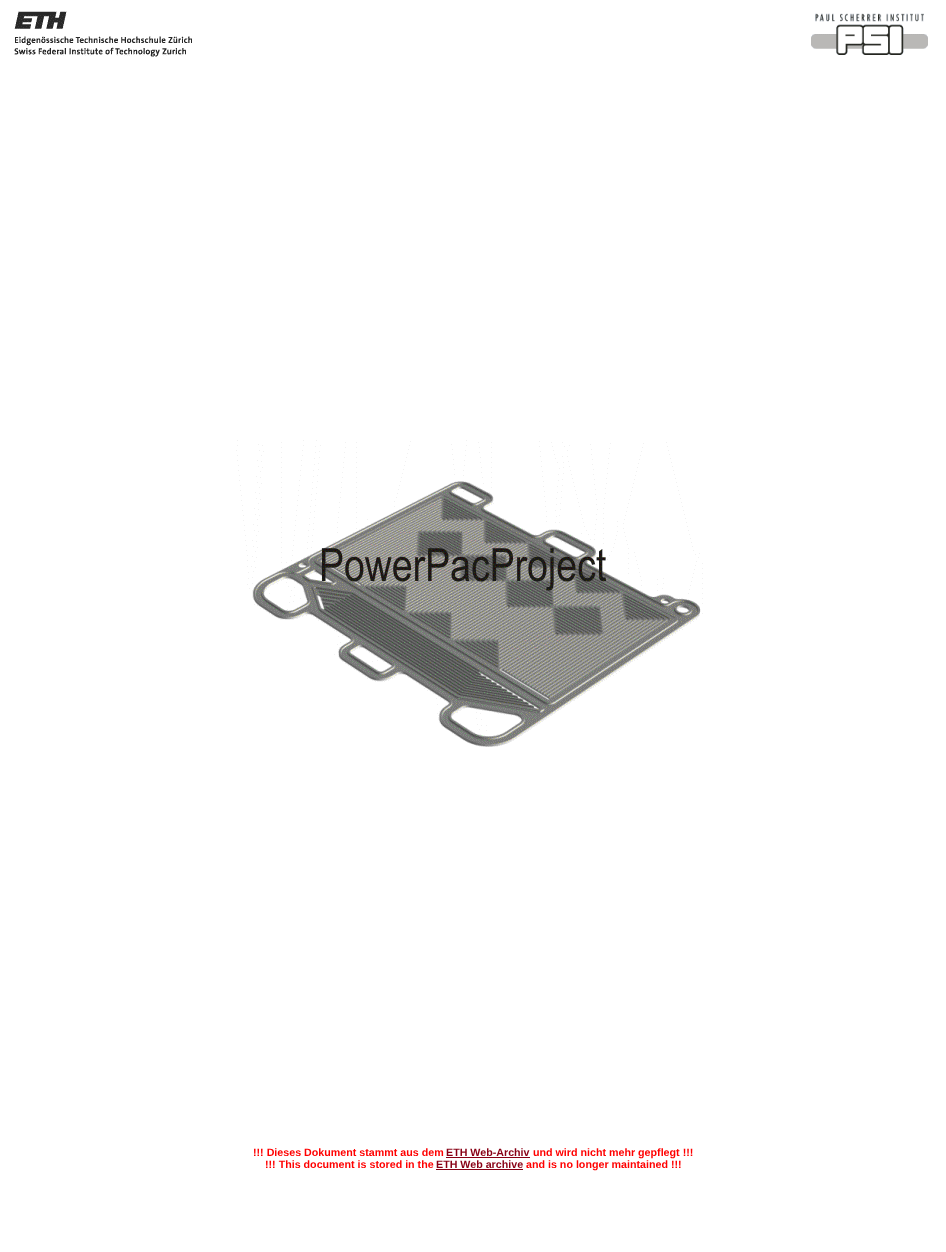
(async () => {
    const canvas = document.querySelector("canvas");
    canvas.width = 946;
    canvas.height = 1252;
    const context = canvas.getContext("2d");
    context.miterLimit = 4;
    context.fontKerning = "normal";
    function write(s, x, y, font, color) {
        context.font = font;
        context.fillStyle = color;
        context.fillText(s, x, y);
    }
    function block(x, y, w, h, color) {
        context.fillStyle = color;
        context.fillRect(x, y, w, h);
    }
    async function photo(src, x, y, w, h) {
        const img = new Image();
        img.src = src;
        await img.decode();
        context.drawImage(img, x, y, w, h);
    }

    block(0, 0, 946, 1252, "rgb(255, 255, 255)");
    await photo("media/1.png", 14, 11, 178, 46);
    await photo("media/2.png", 811, 13, 117, 42);
    await photo("media/3.png", 236, 440, 467, 307);
    write("!!! Dieses Dokument stammt aus dem", 253, 1156, "bold 10.7px Liberation Sans", "rgb(255, 0, 0)");
    write("ETH Web-Archiv", 446, 1156, "bold 10.7px Liberation Sans", "rgb(136, 0, 21)");
    block(446, 1157, 84, 1, "rgb(136, 0, 21)");
    write("und wird nicht mehr gepflegt !!!", 533, 1156, "bold 10.7px Liberation Sans", "rgb(255, 0, 0)");
    write("!!! This document is stored in the", 265, 1168, "bold 10.7px Liberation Sans", "rgb(255, 0, 0)");
    write("ETH Web archive", 436, 1168, "bold 10.7px Liberation Sans", "rgb(136, 0, 21)");
    block(436, 1169, 87, 1, "rgb(136, 0, 21)");
    write("and is no longer maintained !!!", 526, 1168, "bold 10.7px Liberation Sans", "rgb(255, 0, 0)");
})();
